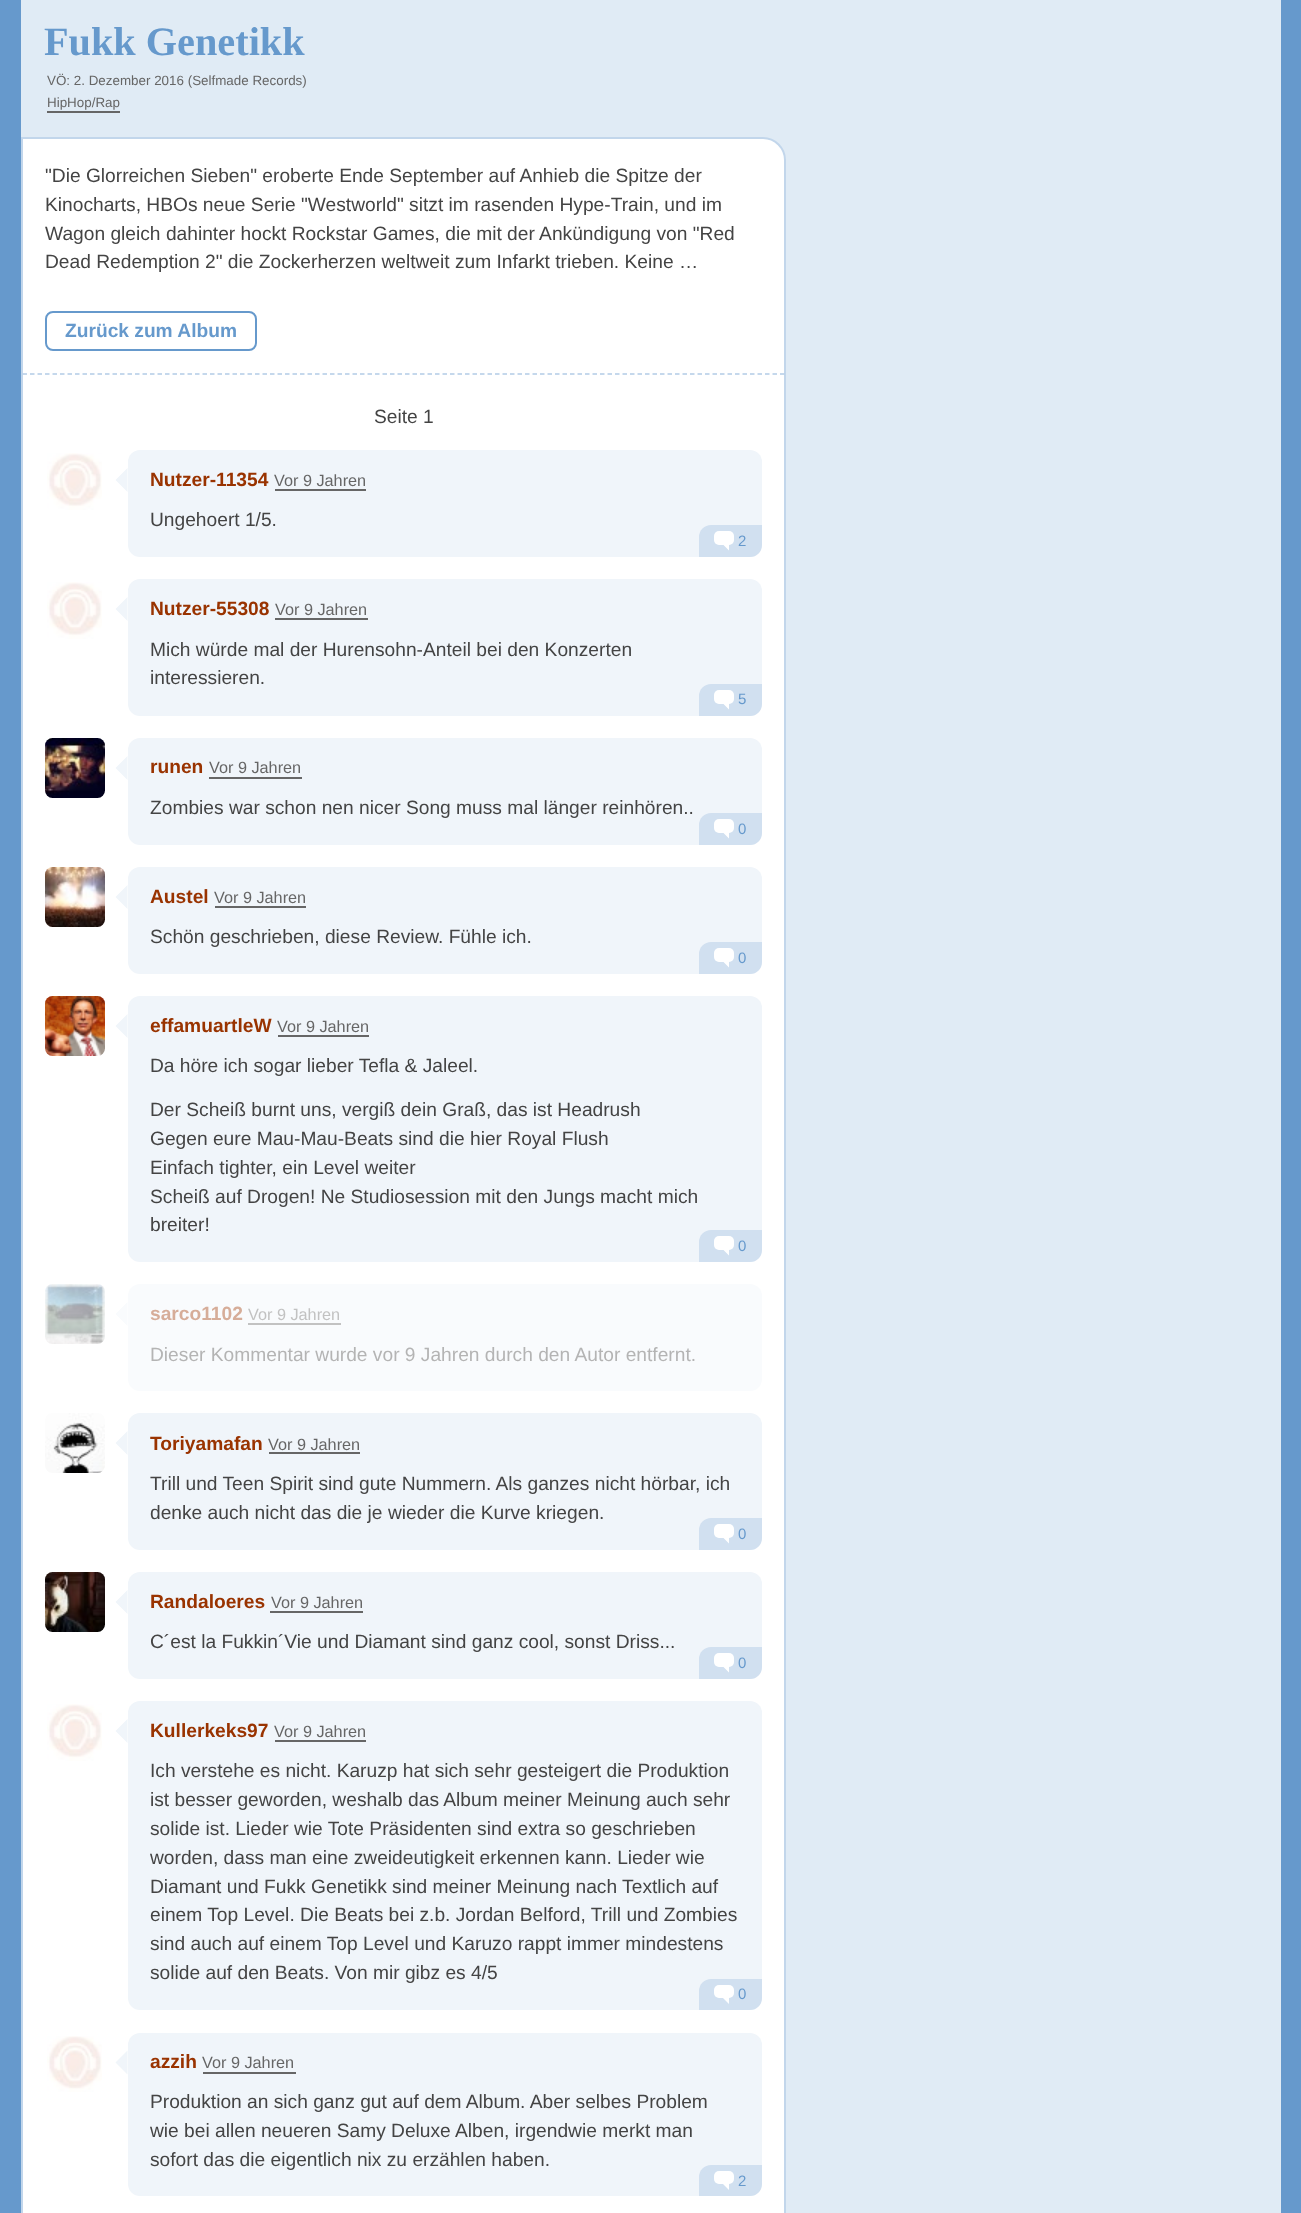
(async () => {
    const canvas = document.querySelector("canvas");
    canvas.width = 1301;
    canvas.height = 2213;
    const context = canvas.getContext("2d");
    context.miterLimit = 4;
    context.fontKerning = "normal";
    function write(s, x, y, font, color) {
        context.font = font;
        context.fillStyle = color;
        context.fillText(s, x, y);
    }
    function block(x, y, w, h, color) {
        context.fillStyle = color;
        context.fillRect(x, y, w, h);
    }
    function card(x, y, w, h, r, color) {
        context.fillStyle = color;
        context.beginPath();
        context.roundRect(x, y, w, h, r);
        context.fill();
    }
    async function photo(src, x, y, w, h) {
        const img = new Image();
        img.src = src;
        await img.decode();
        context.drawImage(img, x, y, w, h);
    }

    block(0, 0, 1301, 2213, "rgb(102, 153, 204)");
    block(21, 0, 1260, 2213, "rgb(224, 235, 245)");
    write("Fukk Genetikk", 44, 55, "bold 40.25px Liberation Serif", "rgb(102, 153, 204)");
    write("VÖ: 2. Dezember 2016 (Selfmade Records)", 47, 85, "13.4px Liberation Sans", "rgb(102, 102, 102)");
    block(47, 111, 73, 2, "rgb(102, 102, 102)");
    write("HipHop/Rap", 47, 107, "13.4px Liberation Sans", "rgb(102, 102, 102)");
    context.fillStyle = "rgb(255, 255, 255)";
    context.beginPath();
    context.moveTo(22, 138);
    context.lineTo(763, 138);
    context.bezierCurveTo(775, 138, 785, 148, 785, 160);
    context.lineTo(785, 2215);
    context.bezierCurveTo(785, 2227, 775, 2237, 763, 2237);
    context.lineTo(22, 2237);
    context.closePath();
    context.fill();
    context.strokeStyle = "rgb(194, 214, 235)";
    context.lineWidth = 2;
    context.stroke();
    context.beginPath();
    context.moveTo(22.5, 374);
    context.lineTo(784.5, 374);
    context.strokeStyle = "rgb(179, 204, 230)";
    context.lineWidth = 1.5;
    context.setLineDash([4.5, 3]);
    context.stroke();
    write("\"Die Glorreichen Sieben\" eroberte Ende September auf Anhieb die Spitze der", 45, 182, "19.2px Liberation Sans", "rgb(68, 68, 68)");
    write("Kinocharts, HBOs neue Serie \"Westworld\" sitzt im rasenden Hype-Train, und im", 45, 211, "19.2px Liberation Sans", "rgb(68, 68, 68)");
    write("Wagon gleich dahinter hockt Rockstar Games, die mit der Ankündigung von \"Red", 45, 240, "19.2px Liberation Sans", "rgb(68, 68, 68)");
    write("Dead Redemption 2\" die Zockerherzen weltweit zum Infarkt trieben. Keine …", 45, 268, "19.2px Liberation Sans", "rgb(68, 68, 68)");
    context.beginPath();
    context.roundRect(46, 312, 210, 38, 7);
    context.strokeStyle = "rgb(102, 153, 204)";
    context.lineWidth = 2;
    context.setLineDash([]);
    context.stroke();
    write("Zurück zum Album", 65, 337, "bold 19.2px Liberation Sans", "rgb(102, 153, 204)");
    write("Seite 1", 374, 423, "19.2px Liberation Sans", "rgb(68, 68, 68)");
    await photo("media/1.png", 47, 453, 55, 57);
    context.fillStyle = "rgb(240, 245, 250)";
    context.beginPath();
    context.moveTo(127.5, 468);
    context.lineTo(127.5, 492);
    context.lineTo(115.5, 480);
    context.closePath();
    context.fill();
    card(128, 450, 634, 107, 12, "rgb(240, 245, 250)");
    write("Nutzer-11354", 150, 486, "bold 19.2px Liberation Sans", "rgb(153, 51, 0)");
    write("Vor 9 Jahren", 274, 486, "16.25px Liberation Sans", "rgb(102, 102, 102)");
    block(275, 489, 91, 2, "rgb(102, 102, 102)");
    write("Ungehoert 1/5.", 150, 526, "19.2px Liberation Sans", "rgb(68, 68, 68)");
    context.fillStyle = "rgb(209, 224, 240)";
    context.beginPath();
    context.roundRect(699, 525, 63, 32, [12, 0, 12, 0]);
    context.fill();
    card(714, 531, 20, 14, 5, "rgb(255, 255, 255)");
    context.beginPath();
    context.moveTo(729, 544.5);
    context.lineTo(729, 550.5);
    context.lineTo(723, 544.5);
    context.closePath();
    context.fill();
    write("2", 738, 546, "15px Liberation Sans", "rgb(102, 153, 204)");
    await photo("media/1.png", 47, 582, 55, 57);
    context.fillStyle = "rgb(240, 245, 250)";
    context.beginPath();
    context.moveTo(127.5, 597);
    context.lineTo(127.5, 621);
    context.lineTo(115.5, 609);
    context.closePath();
    context.fill();
    card(128, 579, 634, 137, 12, "rgb(240, 245, 250)");
    write("Nutzer-55308", 150, 615, "bold 19.2px Liberation Sans", "rgb(153, 51, 0)");
    write("Vor 9 Jahren", 275, 615, "16.25px Liberation Sans", "rgb(102, 102, 102)");
    block(275, 618, 93, 2, "rgb(102, 102, 102)");
    write("Mich würde mal der Hurensohn-Anteil bei den Konzerten", 150, 656, "19.2px Liberation Sans", "rgb(68, 68, 68)");
    write("interessieren.", 150, 684, "19.2px Liberation Sans", "rgb(68, 68, 68)");
    context.fillStyle = "rgb(209, 224, 240)";
    context.beginPath();
    context.roundRect(699, 684, 63, 32, [12, 0, 12, 0]);
    context.fill();
    card(714, 690, 20, 14, 5, "rgb(255, 255, 255)");
    context.beginPath();
    context.moveTo(729, 703.5);
    context.lineTo(729, 709.5);
    context.lineTo(723, 703.5);
    context.closePath();
    context.fill();
    write("5", 738, 704, "15px Liberation Sans", "rgb(102, 153, 204)");
    await photo("media/2.png", 45, 738, 60, 60);
    context.fillStyle = "rgb(240, 245, 250)";
    context.beginPath();
    context.moveTo(127.5, 756);
    context.lineTo(127.5, 780);
    context.lineTo(115.5, 768);
    context.closePath();
    context.fill();
    card(128, 738, 634, 107, 12, "rgb(240, 245, 250)");
    write("runen", 150, 773, "bold 19.2px Liberation Sans", "rgb(153, 51, 0)");
    write("Vor 9 Jahren", 209, 773, "16.25px Liberation Sans", "rgb(102, 102, 102)");
    block(209, 777, 93, 2, "rgb(102, 102, 102)");
    write("Zombies war schon nen nicer Song muss mal länger reinhören..", 150, 814, "19.2px Liberation Sans", "rgb(68, 68, 68)");
    context.fillStyle = "rgb(209, 224, 240)";
    context.beginPath();
    context.roundRect(699, 813, 63, 32, [12, 0, 12, 0]);
    context.fill();
    card(714, 819, 20, 14, 5, "rgb(255, 255, 255)");
    context.beginPath();
    context.moveTo(729, 832.5);
    context.lineTo(729, 838.5);
    context.lineTo(723, 832.5);
    context.closePath();
    context.fill();
    write("0", 738, 834, "15px Liberation Sans", "rgb(102, 153, 204)");
    await photo("media/3.png", 45, 867, 60, 60);
    context.fillStyle = "rgb(240, 245, 250)";
    context.beginPath();
    context.moveTo(127.5, 885);
    context.lineTo(127.5, 909);
    context.lineTo(115.5, 897);
    context.closePath();
    context.fill();
    card(128, 867, 634, 107, 12, "rgb(240, 245, 250)");
    write("Austel", 150, 903, "bold 19.2px Liberation Sans", "rgb(153, 51, 0)");
    write("Vor 9 Jahren", 214, 903, "16.25px Liberation Sans", "rgb(102, 102, 102)");
    block(215, 906, 91, 2, "rgb(102, 102, 102)");
    write("Schön geschrieben, diese Review. Fühle ich.", 150, 943, "19.2px Liberation Sans", "rgb(68, 68, 68)");
    context.fillStyle = "rgb(209, 224, 240)";
    context.beginPath();
    context.roundRect(699, 942, 63, 32, [12, 0, 12, 0]);
    context.fill();
    card(714, 948, 20, 14, 5, "rgb(255, 255, 255)");
    context.beginPath();
    context.moveTo(729, 961.5);
    context.lineTo(729, 967.5);
    context.lineTo(723, 961.5);
    context.closePath();
    context.fill();
    write("0", 738, 963, "15px Liberation Sans", "rgb(102, 153, 204)");
    await photo("media/4.png", 45, 996, 60, 60);
    context.fillStyle = "rgb(240, 245, 250)";
    context.beginPath();
    context.moveTo(127.5, 1014);
    context.lineTo(127.5, 1038);
    context.lineTo(115.5, 1026);
    context.closePath();
    context.fill();
    card(128, 996, 634, 266, 12, "rgb(240, 245, 250)");
    write("effamuartleW", 150, 1032, "bold 19.2px Liberation Sans", "rgb(153, 51, 0)");
    write("Vor 9 Jahren", 277, 1032, "16.25px Liberation Sans", "rgb(102, 102, 102)");
    block(278, 1035, 91, 2, "rgb(102, 102, 102)");
    write("Da höre ich sogar lieber Tefla & Jaleel.", 150, 1072, "19.2px Liberation Sans", "rgb(68, 68, 68)");
    write("Der Scheiß burnt uns, vergiß dein Graß, das ist Headrush", 150, 1116, "19.2px Liberation Sans", "rgb(68, 68, 68)");
    write("Gegen eure Mau-Mau-Beats sind die hier Royal Flush", 150, 1145, "19.2px Liberation Sans", "rgb(68, 68, 68)");
    write("Einfach tighter, ein Level weiter", 150, 1174, "19.2px Liberation Sans", "rgb(68, 68, 68)");
    write("Scheiß auf Drogen! Ne Studiosession mit den Jungs macht mich", 150, 1203, "19.2px Liberation Sans", "rgb(68, 68, 68)");
    write("breiter!", 150, 1231, "19.2px Liberation Sans", "rgb(68, 68, 68)");
    context.fillStyle = "rgb(209, 224, 240)";
    context.beginPath();
    context.roundRect(699, 1230, 63, 32, [12, 0, 12, 0]);
    context.fill();
    card(714, 1236, 20, 14, 5, "rgb(255, 255, 255)");
    context.beginPath();
    context.moveTo(729, 1249.5);
    context.lineTo(729, 1255.5);
    context.lineTo(723, 1249.5);
    context.closePath();
    context.fill();
    write("0", 738, 1251, "15px Liberation Sans", "rgb(102, 153, 204)");
    await photo("media/5.png", 45, 1284, 60, 60);
    context.fillStyle = "rgb(249, 251, 253)";
    context.beginPath();
    context.moveTo(127.5, 1302);
    context.lineTo(127.5, 1326);
    context.lineTo(115.5, 1314);
    context.closePath();
    context.fill();
    card(128, 1284, 634, 107, 12, "rgb(249, 251, 253)");
    write("sarco1102", 150, 1320, "bold 19.2px Liberation Sans", "rgb(214, 173, 153)");
    write("Vor 9 Jahren", 248, 1320, "16.25px Liberation Sans", "rgb(194, 194, 194)");
    block(248, 1323, 93, 2, "rgb(194, 194, 194)");
    write("Dieser Kommentar wurde vor 9 Jahren durch den Autor entfernt.", 150, 1361, "19.2px Liberation Sans", "rgb(180, 180, 180)");
    await photo("media/6.png", 45, 1413, 60, 60);
    context.fillStyle = "rgb(240, 245, 250)";
    context.beginPath();
    context.moveTo(127.5, 1431);
    context.lineTo(127.5, 1455);
    context.lineTo(115.5, 1443);
    context.closePath();
    context.fill();
    card(128, 1413, 634, 137, 12, "rgb(240, 245, 250)");
    write("Toriyamafan", 150, 1450, "bold 19.2px Liberation Sans", "rgb(153, 51, 0)");
    write("Vor 9 Jahren", 268, 1450, "16.25px Liberation Sans", "rgb(102, 102, 102)");
    block(269, 1452, 91, 2, "rgb(102, 102, 102)");
    write("Trill und Teen Spirit sind gute Nummern. Als ganzes nicht hörbar, ich", 150, 1490, "19.2px Liberation Sans", "rgb(68, 68, 68)");
    write("denke auch nicht das die je wieder die Kurve kriegen.", 150, 1519, "19.2px Liberation Sans", "rgb(68, 68, 68)");
    context.fillStyle = "rgb(209, 224, 240)";
    context.beginPath();
    context.roundRect(699, 1518, 63, 32, [12, 0, 12, 0]);
    context.fill();
    card(714, 1524, 20, 14, 5, "rgb(255, 255, 255)");
    context.beginPath();
    context.moveTo(729, 1537.5);
    context.lineTo(729, 1543.5);
    context.lineTo(723, 1537.5);
    context.closePath();
    context.fill();
    write("0", 738, 1539, "15px Liberation Sans", "rgb(102, 153, 204)");
    await photo("media/7.png", 45, 1572, 60, 60);
    context.fillStyle = "rgb(240, 245, 250)";
    context.beginPath();
    context.moveTo(127.5, 1590);
    context.lineTo(127.5, 1614);
    context.lineTo(115.5, 1602);
    context.closePath();
    context.fill();
    card(128, 1572, 634, 107, 12, "rgb(240, 245, 250)");
    write("Randaloeres", 150, 1608, "bold 19.2px Liberation Sans", "rgb(153, 51, 0)");
    write("Vor 9 Jahren", 271, 1608, "16.25px Liberation Sans", "rgb(102, 102, 102)");
    block(270, 1611, 93, 2, "rgb(102, 102, 102)");
    write("C´est la Fukkin´Vie und Diamant sind ganz cool, sonst Driss...", 150, 1648, "19.2px Liberation Sans", "rgb(68, 68, 68)");
    context.fillStyle = "rgb(209, 224, 240)";
    context.beginPath();
    context.roundRect(699, 1647, 63, 32, [12, 0, 12, 0]);
    context.fill();
    card(714, 1653, 20, 14, 5, "rgb(255, 255, 255)");
    context.beginPath();
    context.moveTo(729, 1666.5);
    context.lineTo(729, 1672.5);
    context.lineTo(723, 1666.5);
    context.closePath();
    context.fill();
    write("0", 738, 1668, "15px Liberation Sans", "rgb(102, 153, 204)");
    await photo("media/1.png", 47, 1704, 55, 57);
    context.fillStyle = "rgb(240, 245, 250)";
    context.beginPath();
    context.moveTo(127.5, 1719);
    context.lineTo(127.5, 1743);
    context.lineTo(115.5, 1731);
    context.closePath();
    context.fill();
    card(128, 1701, 634, 309, 12, "rgb(240, 245, 250)");
    write("Kullerkeks97", 150, 1737, "bold 19.2px Liberation Sans", "rgb(153, 51, 0)");
    write("Vor 9 Jahren", 274, 1737, "16.25px Liberation Sans", "rgb(102, 102, 102)");
    block(275, 1740, 91, 2, "rgb(102, 102, 102)");
    write("Ich verstehe es nicht. Karuzp hat sich sehr gesteigert die Produktion", 150, 1777, "19.2px Liberation Sans", "rgb(68, 68, 68)");
    write("ist besser geworden, weshalb das Album meiner Meinung auch sehr", 150, 1806, "19.2px Liberation Sans", "rgb(68, 68, 68)");
    write("solide ist. Lieder wie Tote Präsidenten sind extra so geschrieben", 150, 1835, "19.2px Liberation Sans", "rgb(68, 68, 68)");
    write("worden, dass man eine zweideutigkeit erkennen kann. Lieder wie", 150, 1864, "19.2px Liberation Sans", "rgb(68, 68, 68)");
    write("Diamant und Fukk Genetikk sind meiner Meinung nach Textlich auf", 150, 1893, "19.2px Liberation Sans", "rgb(68, 68, 68)");
    write("einem Top Level. Die Beats bei z.b. Jordan Belford, Trill und Zombies", 150, 1921, "19.2px Liberation Sans", "rgb(68, 68, 68)");
    write("sind auch auf einem Top Level und Karuzo rappt immer mindestens", 150, 1950, "19.2px Liberation Sans", "rgb(68, 68, 68)");
    write("solide auf den Beats. Von mir gibz es 4/5", 150, 1979, "19.2px Liberation Sans", "rgb(68, 68, 68)");
    context.fillStyle = "rgb(209, 224, 240)";
    context.beginPath();
    context.roundRect(699, 1979, 63, 31, [12, 0, 12, 0]);
    context.fill();
    card(714, 1985, 20, 13, 5, "rgb(255, 255, 255)");
    context.beginPath();
    context.moveTo(729, 1998);
    context.lineTo(729, 2004);
    context.lineTo(723, 1998);
    context.closePath();
    context.fill();
    write("0", 738, 1999, "15px Liberation Sans", "rgb(102, 153, 204)");
    await photo("media/8.png", 47, 2036, 55, 56);
    context.fillStyle = "rgb(240, 245, 250)";
    context.beginPath();
    context.moveTo(127.5, 2050.5);
    context.lineTo(127.5, 2074.5);
    context.lineTo(115.5, 2062.5);
    context.closePath();
    context.fill();
    card(128, 2033, 634, 163, 12, "rgb(240, 245, 250)");
    write("azzih", 150, 2068, "bold 19.2px Liberation Sans", "rgb(153, 51, 0)");
    write("Vor 9 Jahren", 202, 2068, "16.25px Liberation Sans", "rgb(102, 102, 102)");
    block(203, 2072, 93, 2, "rgb(102, 102, 102)");
    write("Produktion an sich ganz gut auf dem Album. Aber selbes Problem", 150, 2108, "19.2px Liberation Sans", "rgb(68, 68, 68)");
    write("wie bei allen neueren Samy Deluxe Alben, irgendwie merkt man", 150, 2137, "19.2px Liberation Sans", "rgb(68, 68, 68)");
    write("sofort das die eigentlich nix zu erzählen haben.", 150, 2166, "19.2px Liberation Sans", "rgb(68, 68, 68)");
    context.fillStyle = "rgb(209, 224, 240)";
    context.beginPath();
    context.roundRect(699, 2165, 63, 31, [12, 0, 12, 0]);
    context.fill();
    card(714, 2171, 20, 13, 5, "rgb(255, 255, 255)");
    context.beginPath();
    context.moveTo(729, 2184);
    context.lineTo(729, 2190);
    context.lineTo(723, 2184);
    context.closePath();
    context.fill();
    write("2", 738, 2186, "15px Liberation Sans", "rgb(102, 153, 204)");
})();
